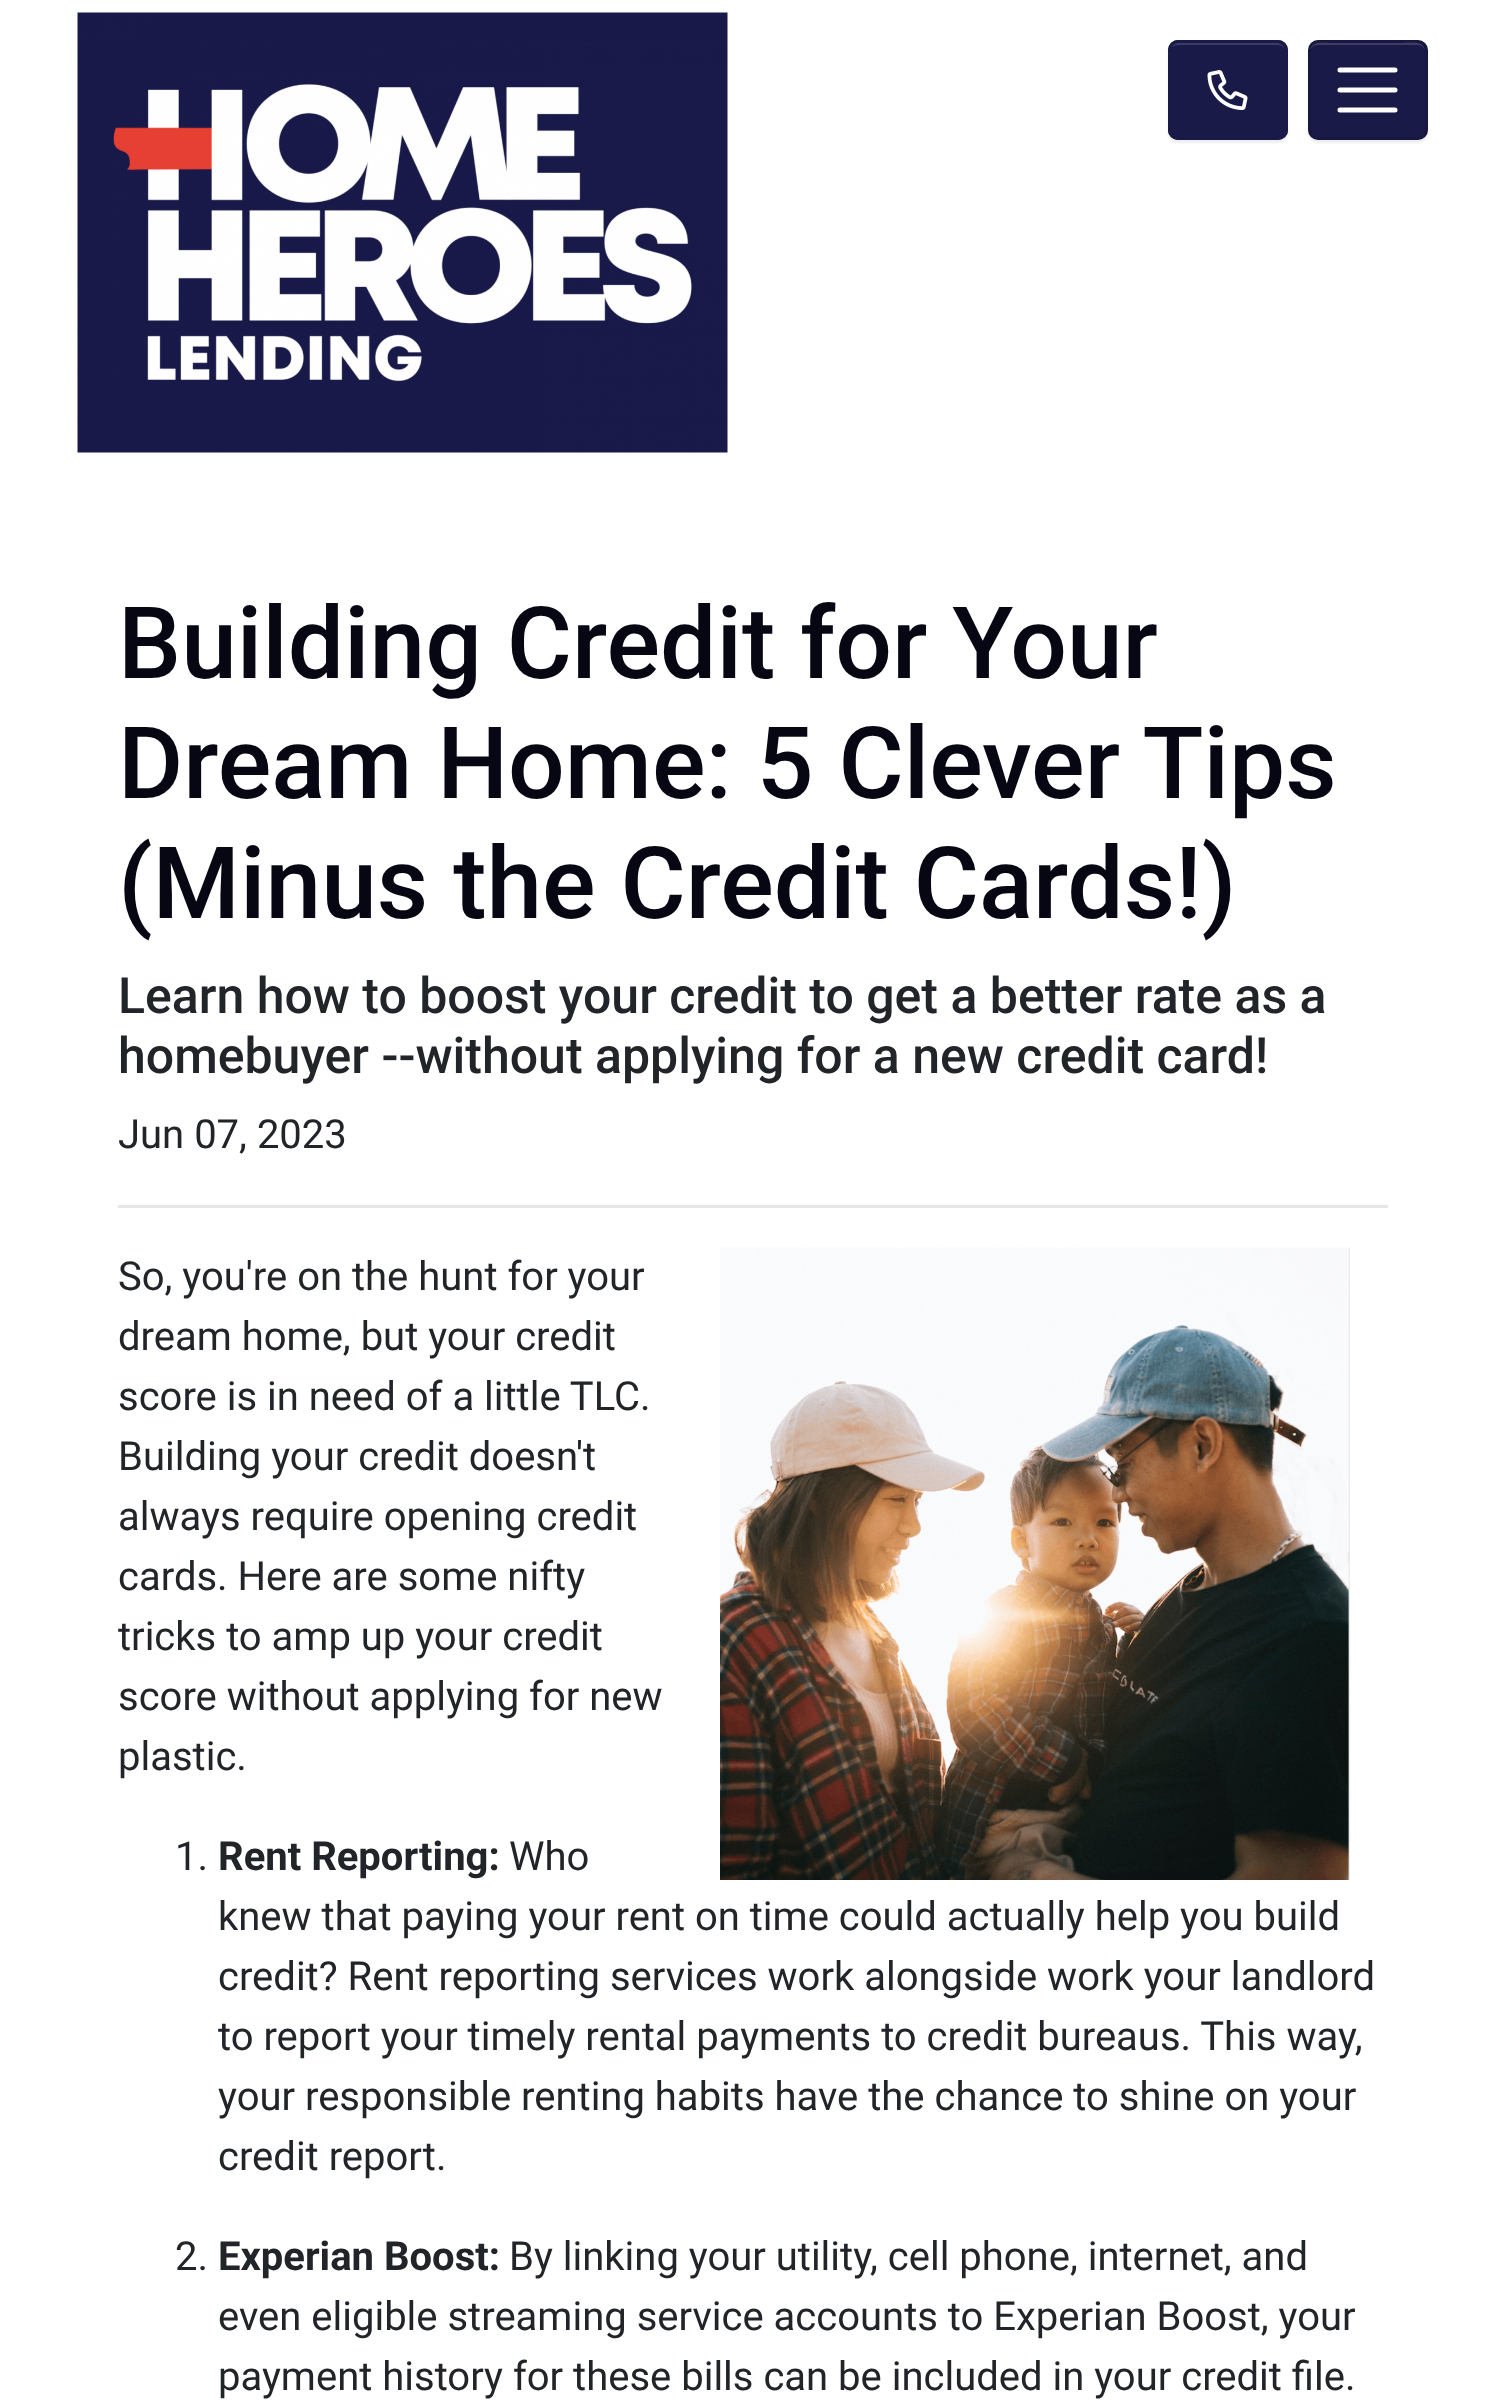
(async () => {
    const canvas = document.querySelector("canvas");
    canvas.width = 1503;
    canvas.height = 2402;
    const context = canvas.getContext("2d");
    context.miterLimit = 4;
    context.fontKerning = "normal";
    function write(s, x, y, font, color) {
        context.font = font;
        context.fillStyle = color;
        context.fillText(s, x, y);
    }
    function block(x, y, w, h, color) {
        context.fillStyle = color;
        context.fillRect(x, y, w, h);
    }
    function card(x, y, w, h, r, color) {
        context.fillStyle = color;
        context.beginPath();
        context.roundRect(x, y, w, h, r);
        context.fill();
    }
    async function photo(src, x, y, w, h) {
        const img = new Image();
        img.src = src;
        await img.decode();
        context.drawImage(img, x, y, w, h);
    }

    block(0, 0, 1503, 2402, "rgb(255, 255, 255)");
    await photo("media/1.png", 77, 12, 651, 441);
    context.fillStyle = "rgba(0, 0, 0, 0.07)";
    context.filter = "blur(1px)";
    context.beginPath();
    context.roundRect(1168, 43, 120, 100, 10);
    context.fill();
    context.filter = "none";
    card(1168, 40, 120, 100, 10, "rgb(26, 26, 73)");
    context.fillStyle = "rgb(60, 60, 100)";
    context.beginPath();
    context.moveTo(1178, 45);
    context.lineTo(1278, 45);
    context.bezierCurveTo(1282, 45, 1285, 48, 1285, 52);
    context.bezierCurveTo(1285, 39, 1269, 43, 1260, 43);
    context.lineTo(1194, 43);
    context.bezierCurveTo(1186, 43, 1170, 39, 1170, 52);
    context.bezierCurveTo(1170, 48, 1173, 45, 1178, 45);
    context.closePath();
    context.fill();
    context.beginPath();
    context.roundRect(1169.5, 41.5, 117, 97, 8.5);
    context.strokeStyle = "rgb(26, 26, 73)";
    context.lineWidth = 3;
    context.stroke();
    await photo("media/2.png", 1207, 70, 41, 40);
    context.fillStyle = "rgba(0, 0, 0, 0.07)";
    context.filter = "blur(1px)";
    context.beginPath();
    context.roundRect(1308, 43, 120, 100, 10);
    context.fill();
    context.filter = "none";
    card(1308, 40, 120, 100, 10, "rgb(26, 26, 73)");
    context.fillStyle = "rgb(60, 60, 100)";
    context.beginPath();
    context.moveTo(1318, 45);
    context.lineTo(1418, 45);
    context.bezierCurveTo(1422, 45, 1425, 48, 1425, 52);
    context.bezierCurveTo(1425, 39, 1409, 43, 1400, 43);
    context.lineTo(1334, 43);
    context.bezierCurveTo(1326, 43, 1310, 39, 1310, 52);
    context.bezierCurveTo(1310, 48, 1313, 45, 1318, 45);
    context.closePath();
    context.fill();
    context.beginPath();
    context.roundRect(1309.5, 41.5, 117, 97, 8.5);
    context.strokeStyle = "rgba(0, 0, 0, 0.1)";
    context.stroke();
    context.beginPath();
    context.moveTo(1340, 70);
    context.lineTo(1395, 70);
    context.moveTo(1340, 90);
    context.lineTo(1395, 90);
    context.moveTo(1340, 110);
    context.lineTo(1395, 110);
    context.strokeStyle = "rgb(255, 255, 255)";
    context.lineWidth = 5;
    context.lineCap = "round";
    context.stroke();
    write("Building Credit for Your", 118, 678, "500 100px Roboto", "rgb(7, 7, 20)");
    write("Dream Home: 5 Clever Tips", 118, 798, "500 100px Roboto", "rgb(7, 7, 20)");
    write("(Minus the Credit Cards!)", 118, 918, "500 100px Roboto", "rgb(7, 7, 20)");
    write("Learn how to boost your credit to get a better rate as a", 118, 1013, "500 50px Roboto", "rgb(33, 37, 41)");
    write("homebuyer --without applying for a new credit card!", 118, 1073, "500 50px Roboto", "rgb(33, 37, 41)");
    write("Jun 07, 2023", 118, 1148, "40px Roboto", "rgb(33, 37, 41)");
    block(118, 1205, 1270, 3, "rgb(230, 230, 230)");
    write("So, you're on the hunt for your", 118, 1290, "40px Roboto", "rgb(33, 37, 41)");
    await photo("media/3.png", 720, 1247, 630, 633);
    write("dream home, but your credit", 118, 1350, "40px Roboto", "rgb(33, 37, 41)");
    write("score is in need of a little TLC.", 118, 1410, "40px Roboto", "rgb(33, 37, 41)");
    write("Building your credit doesn't", 118, 1470, "40px Roboto", "rgb(33, 37, 41)");
    write("always require opening credit", 118, 1530, "40px Roboto", "rgb(33, 37, 41)");
    write("cards. Here are some nifty", 118, 1590, "40px Roboto", "rgb(33, 37, 41)");
    write("tricks to amp up your credit", 118, 1650, "40px Roboto", "rgb(33, 37, 41)");
    write("score without applying for new", 118, 1710, "40px Roboto", "rgb(33, 37, 41)");
    write("plastic.", 118, 1770, "40px Roboto", "rgb(33, 37, 41)");
    write("1.", 175, 1870, "40px Roboto", "rgb(33, 37, 41)");
    write("Rent Reporting:", 218, 1870, "bold 40px Roboto", "rgb(33, 37, 41)");
    write("Who", 509, 1870, "40px Roboto", "rgb(33, 37, 41)");
    write("knew that paying your rent on time could actually help you build", 218, 1930, "40px Roboto", "rgb(33, 37, 41)");
    write("credit? Rent reporting services work alongside work your landlord", 218, 1990, "40px Roboto", "rgb(33, 37, 41)");
    write("to report your timely rental payments to credit bureaus. This way,", 218, 2050, "40px Roboto", "rgb(33, 37, 41)");
    write("your responsible renting habits have the chance to shine on your", 218, 2110, "40px Roboto", "rgb(33, 37, 41)");
    write("credit report.", 218, 2170, "40px Roboto", "rgb(33, 37, 41)");
    write("2.", 175, 2270, "40px Roboto", "rgb(33, 37, 41)");
    write("Experian Boost:", 218, 2270, "bold 40px Roboto", "rgb(33, 37, 41)");
    write("By linking your utility, cell phone, internet, and", 509, 2270, "40px Roboto", "rgb(33, 37, 41)");
    write("even eligible streaming service accounts to Experian Boost, your", 218, 2330, "40px Roboto", "rgb(33, 37, 41)");
    write("payment history for these bills can be included in your credit file.", 218, 2390, "40px Roboto", "rgb(33, 37, 41)");
})();
